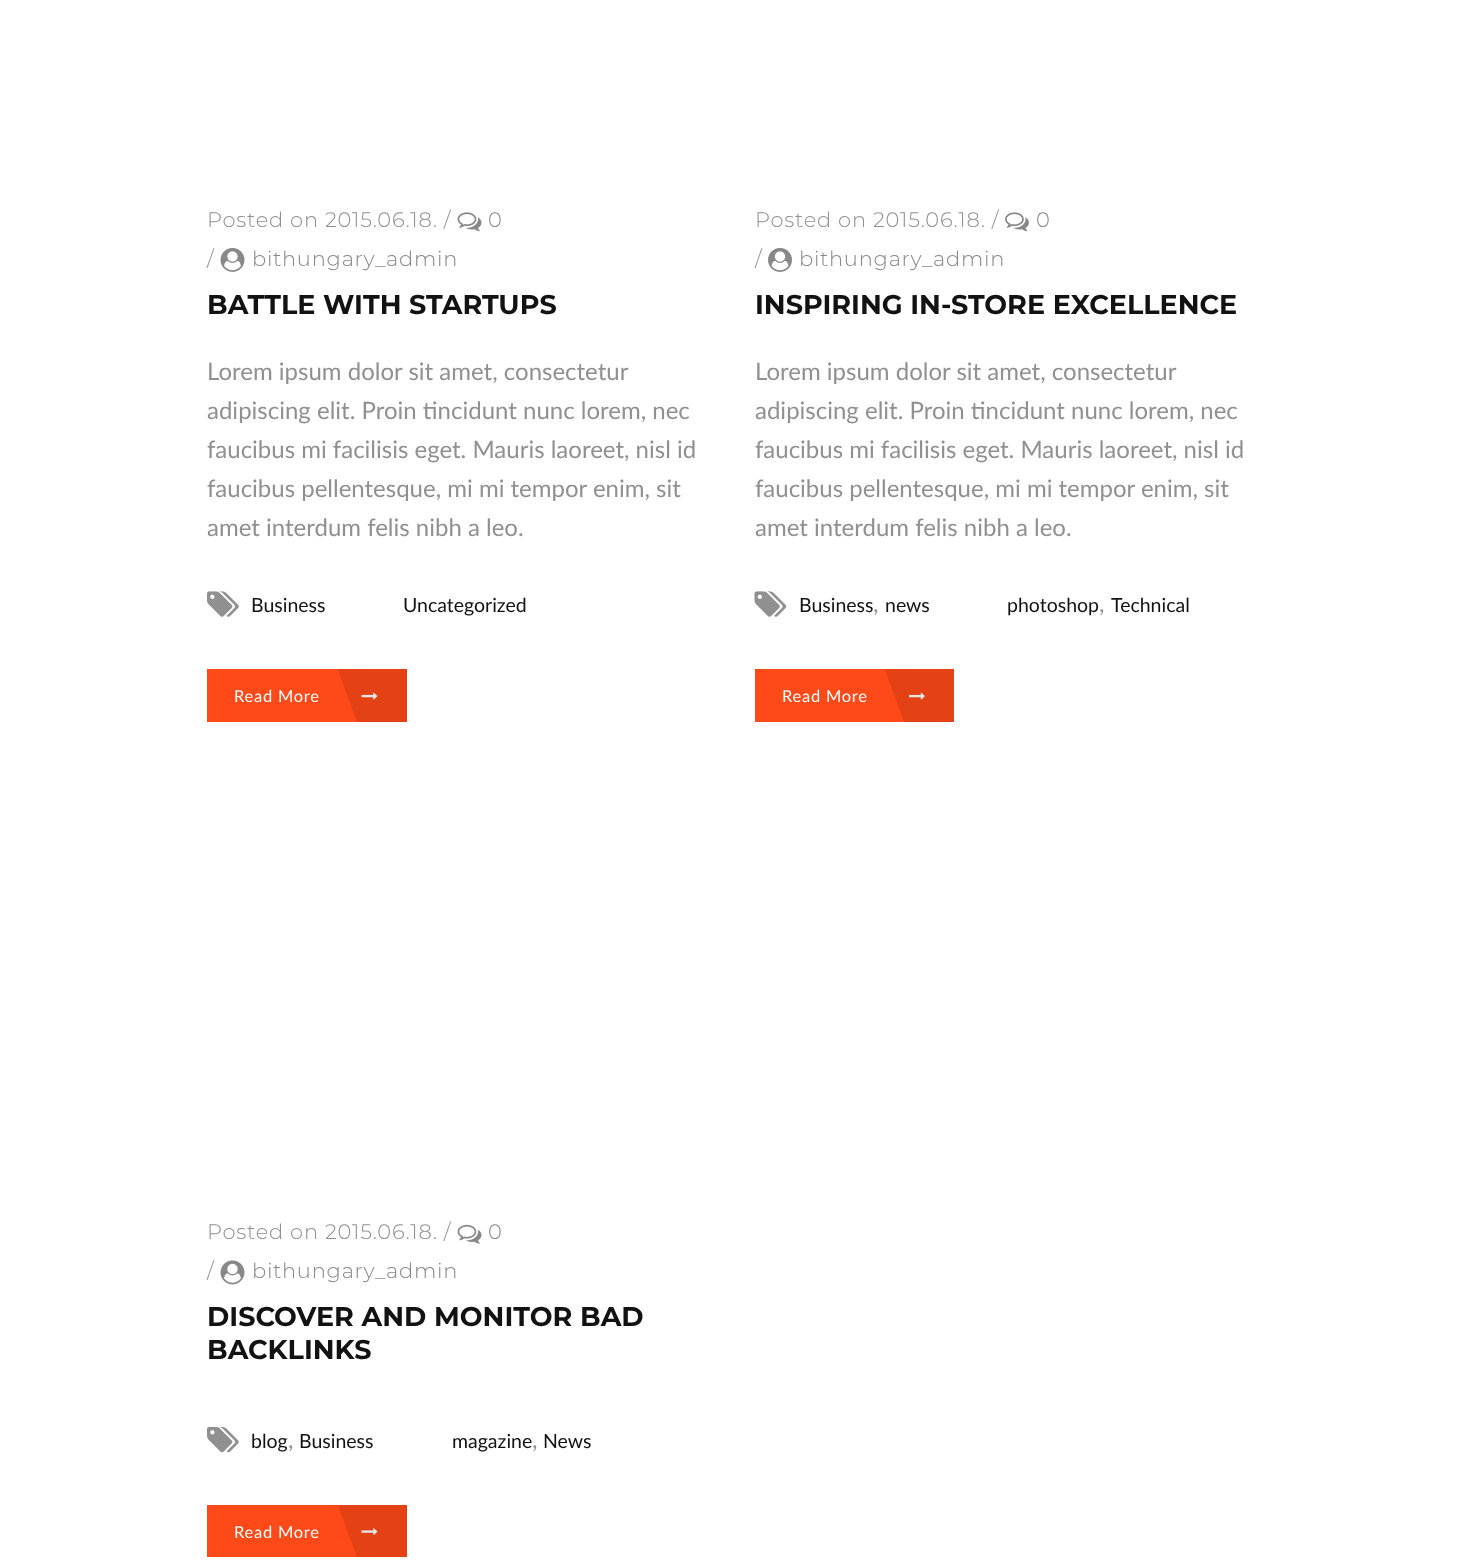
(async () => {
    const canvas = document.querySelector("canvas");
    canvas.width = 1478;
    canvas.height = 1566;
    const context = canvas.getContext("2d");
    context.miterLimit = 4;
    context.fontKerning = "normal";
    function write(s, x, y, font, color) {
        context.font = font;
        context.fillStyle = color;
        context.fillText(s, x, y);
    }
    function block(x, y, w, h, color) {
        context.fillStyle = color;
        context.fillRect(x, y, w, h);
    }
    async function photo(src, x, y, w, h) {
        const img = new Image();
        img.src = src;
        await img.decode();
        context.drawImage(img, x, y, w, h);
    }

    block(0, 0, 1478, 1566, "rgb(255, 255, 255)");
    context.letterSpacing = "0.75px";
    write("Posted on 2015.06.18. /", 207, 227, "300 21px Montserrat", "rgb(144, 144, 144)");
    await photo("media/1.png", 457, 212, 25, 20);
    write("0", 488, 227, "300 21px Montserrat", "rgb(136, 136, 136)");
    write("/", 207, 266, "300 21px Montserrat", "rgb(144, 144, 144)");
    await photo("media/2.png", 220, 247, 25, 25);
    write("bithungary_admin", 252, 266, "300 21px Montserrat", "rgb(136, 136, 136)");
    context.letterSpacing = "0px";
    write("BATTLE WITH STARTUPS", 207, 314, "bold 27px Montserrat", "rgb(18, 18, 18)");
    write("Lorem ipsum dolor sit amet, consectetur", 207, 380, "24px Lato", "rgb(144, 144, 144)");
    write("adipiscing elit. Proin tincidunt nunc lorem, nec", 207, 419, "24px Lato", "rgb(144, 144, 144)");
    write("faucibus mi facilisis eget. Mauris laoreet, nisl id", 207, 458, "24px Lato", "rgb(144, 144, 144)");
    write("faucibus pellentesque, mi mi tempor enim, sit", 207, 497, "24px Lato", "rgb(144, 144, 144)");
    write("amet interdum felis nibh a leo.", 207, 536, "24px Lato", "rgb(144, 144, 144)");
    await photo("media/3.png", 207, 591, 32, 26);
    write("Business", 251, 612, "19.5px Lato", "rgb(18, 18, 18)");
    write("Uncategorized", 403, 612, "19.5px Lato", "rgb(18, 18, 18)");
    block(207, 669, 200, 53, "rgb(254, 73, 24)");
    context.letterSpacing = "0.75px";
    write("Read More", 234, 702, "16.5px Lato", "rgb(255, 255, 255)");
    await photo("media/4.png", 361, 692, 17, 8);
    context.save();
    context.beginPath();
    context.rect(207, 669, 200, 53);
    context.clip();
    context.fillStyle = "rgba(0, 0, 0, 0.1)";
    context.beginPath();
    context.moveTo(335, 662);
    context.lineTo(402, 637);
    context.lineTo(438, 736);
    context.lineTo(371, 760);
    context.closePath();
    context.fill();
    context.restore();
    write("Posted on 2015.06.18. /", 755, 227, "300 21px Montserrat", "rgb(144, 144, 144)");
    await photo("media/5.png", 1005, 212, 24, 20);
    write("0", 1036, 227, "300 21px Montserrat", "rgb(136, 136, 136)");
    write("/", 755, 266, "300 21px Montserrat", "rgb(144, 144, 144)");
    await photo("media/6.png", 768, 248, 24, 24);
    write("bithungary_admin", 799, 266, "300 21px Montserrat", "rgb(136, 136, 136)");
    context.letterSpacing = "0px";
    write("INSPIRING IN-STORE EXCELLENCE", 755, 314, "bold 27px Montserrat", "rgb(18, 18, 18)");
    write("Lorem ipsum dolor sit amet, consectetur", 755, 380, "24px Lato", "rgb(144, 144, 144)");
    write("adipiscing elit. Proin tincidunt nunc lorem, nec", 755, 419, "24px Lato", "rgb(144, 144, 144)");
    write("faucibus mi facilisis eget. Mauris laoreet, nisl id", 755, 458, "24px Lato", "rgb(144, 144, 144)");
    write("faucibus pellentesque, mi mi tempor enim, sit", 755, 497, "24px Lato", "rgb(144, 144, 144)");
    write("amet interdum felis nibh a leo.", 755, 536, "24px Lato", "rgb(144, 144, 144)");
    await photo("media/7.png", 754, 591, 33, 26);
    write("Business", 799, 612, "19.5px Lato", "rgb(18, 18, 18)");
    write(",", 873, 612, "24px Lato", "rgb(144, 144, 144)");
    write("news", 885, 612, "19.5px Lato", "rgb(18, 18, 18)");
    write("photoshop", 1007, 612, "19.5px Lato", "rgb(18, 18, 18)");
    write(",", 1099, 612, "24px Lato", "rgb(144, 144, 144)");
    write("Technical", 1111, 612, "19.5px Lato", "rgb(18, 18, 18)");
    block(755, 669, 199, 53, "rgb(254, 73, 24)");
    context.letterSpacing = "0.75px";
    write("Read More", 782, 702, "16.5px Lato", "rgb(255, 255, 255)");
    await photo("media/8.png", 909, 692, 16, 8);
    context.save();
    context.beginPath();
    context.rect(755, 669, 199, 53);
    context.clip();
    context.fillStyle = "rgba(0, 0, 0, 0.1)";
    context.beginPath();
    context.moveTo(882, 662);
    context.lineTo(950, 637);
    context.lineTo(986, 736);
    context.lineTo(918, 760);
    context.closePath();
    context.fill();
    context.restore();
    write("Posted on 2015.06.18. /", 207, 1239, "300 21px Montserrat", "rgb(144, 144, 144)");
    await photo("media/9.png", 457, 1224, 25, 20);
    write("0", 488, 1239, "300 21px Montserrat", "rgb(136, 136, 136)");
    write("/", 207, 1278, "300 21px Montserrat", "rgb(144, 144, 144)");
    await photo("media/10.png", 220, 1260, 25, 25);
    write("bithungary_admin", 252, 1278, "300 21px Montserrat", "rgb(136, 136, 136)");
    context.letterSpacing = "0px";
    write("DISCOVER AND MONITOR BAD", 207, 1326, "bold 27px Montserrat", "rgb(18, 18, 18)");
    write("BACKLINKS", 207, 1359, "bold 27px Montserrat", "rgb(18, 18, 18)");
    await photo("media/11.png", 207, 1426, 32, 27);
    write("blog", 251, 1448, "19.5px Lato", "rgb(18, 18, 18)");
    write(",", 288, 1448, "24px Lato", "rgb(144, 144, 144)");
    write("Business", 299, 1448, "19.5px Lato", "rgb(18, 18, 18)");
    write("magazine", 452, 1448, "19.5px Lato", "rgb(18, 18, 18)");
    write(",", 532, 1448, "24px Lato", "rgb(144, 144, 144)");
    write("News", 543, 1448, "19.5px Lato", "rgb(18, 18, 18)");
    block(207, 1505, 200, 52, "rgb(254, 73, 24)");
    context.letterSpacing = "0.75px";
    write("Read More", 234, 1538, "16.5px Lato", "rgb(255, 255, 255)");
    await photo("media/12.png", 361, 1528, 17, 8);
    context.save();
    context.beginPath();
    context.rect(207, 1505, 200, 52);
    context.clip();
    context.fillStyle = "rgba(0, 0, 0, 0.1)";
    context.beginPath();
    context.moveTo(335, 1497);
    context.lineTo(402, 1472);
    context.lineTo(438, 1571);
    context.lineTo(371, 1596);
    context.closePath();
    context.fill();
    context.restore();
})();
